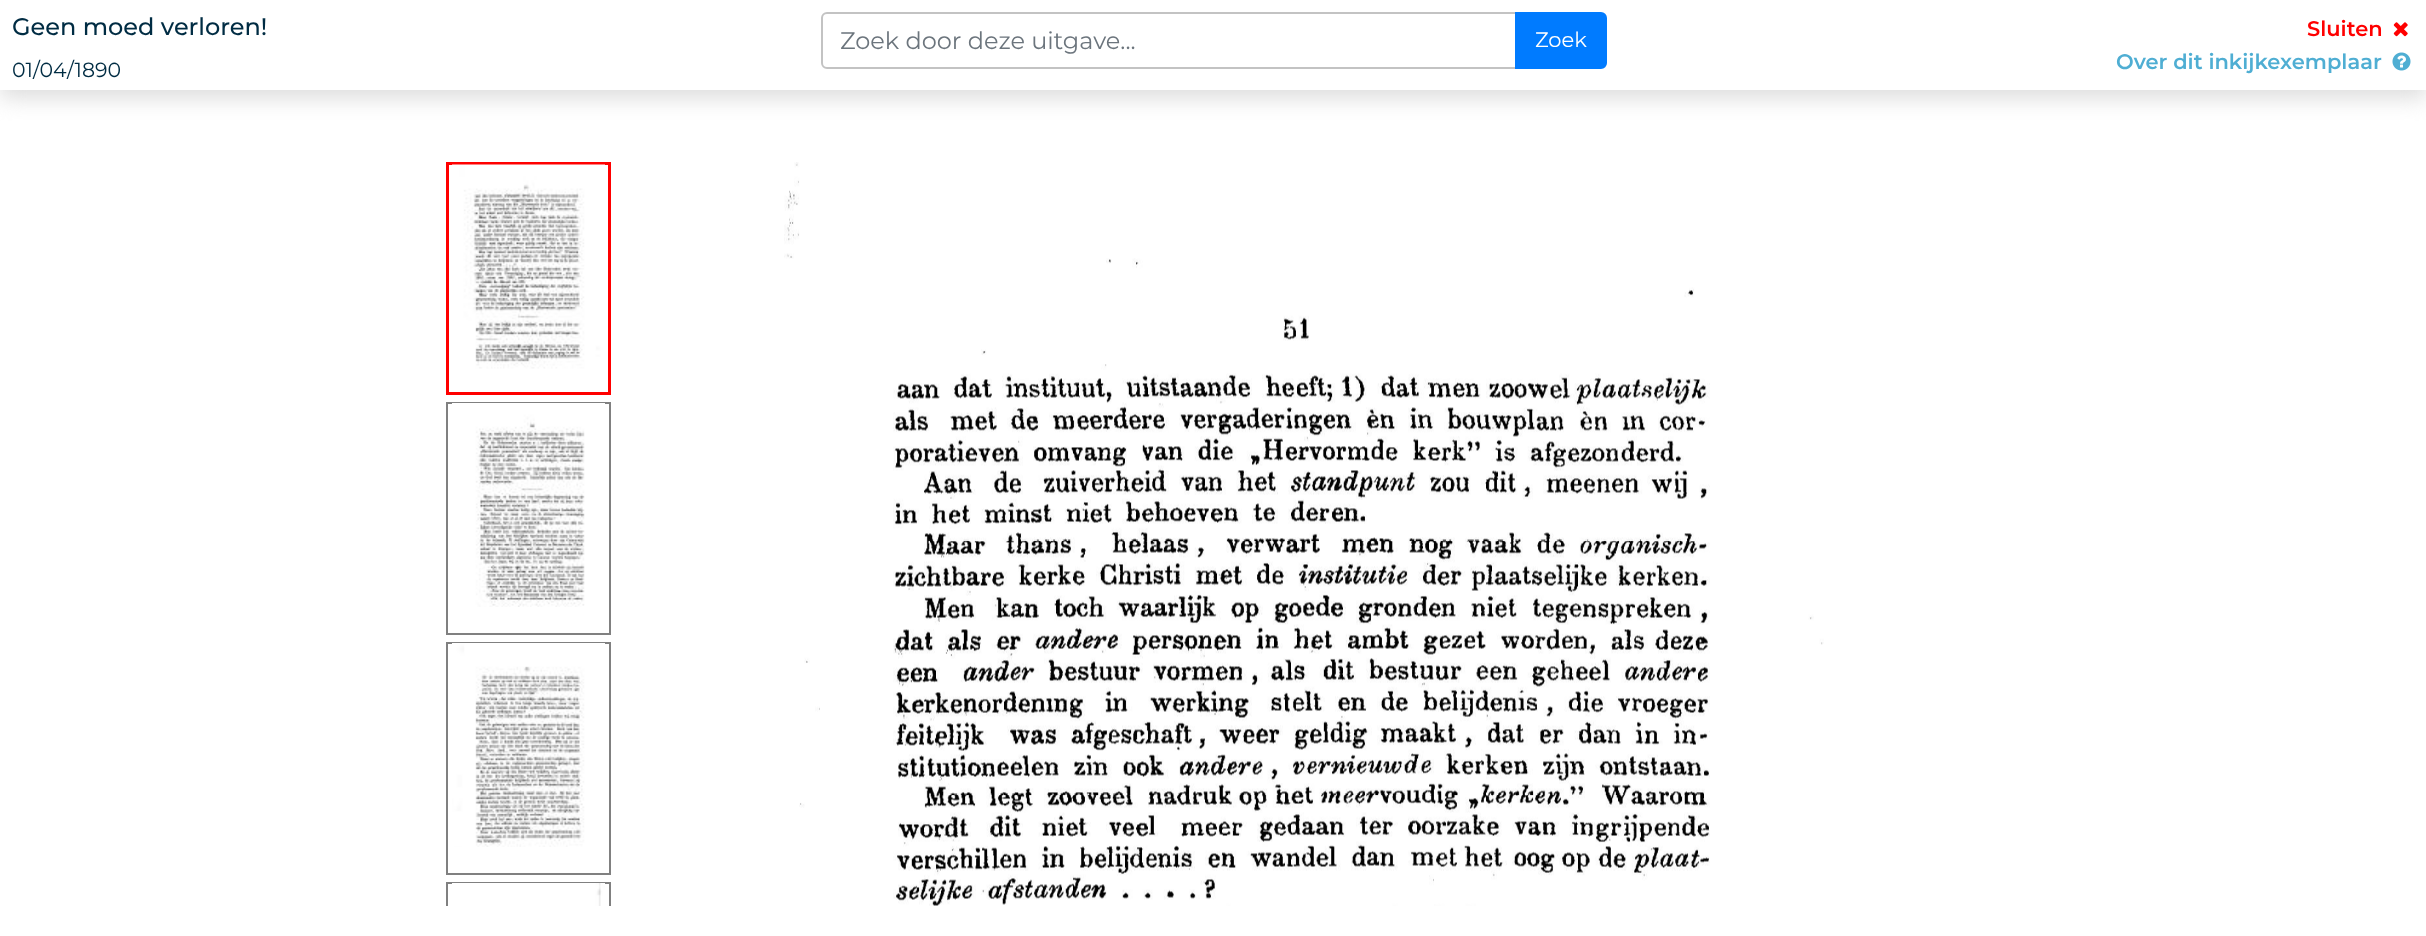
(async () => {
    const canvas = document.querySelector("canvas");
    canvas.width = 2426;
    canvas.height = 936;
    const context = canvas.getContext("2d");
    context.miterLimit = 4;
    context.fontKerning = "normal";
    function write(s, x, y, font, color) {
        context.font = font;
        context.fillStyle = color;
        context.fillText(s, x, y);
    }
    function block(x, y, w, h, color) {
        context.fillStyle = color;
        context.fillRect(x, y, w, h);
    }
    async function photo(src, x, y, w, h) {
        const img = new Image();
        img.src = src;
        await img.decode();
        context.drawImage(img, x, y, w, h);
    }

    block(0, 0, 2426, 936, "rgb(255, 255, 255)");
    context.save();
    context.beginPath();
    context.rect(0, 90, 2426, 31);
    context.clip();
    context.fillStyle = "rgb(220, 220, 220)";
    context.filter = "blur(11px)";
    context.beginPath();
    context.rect(0, 8, 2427, 90);
    context.fill();
    context.filter = "none";
    context.restore();
    write("Geen moed verloren!", 12, 35, "500 24px Montserrat", "rgb(0, 44, 67)");
    write("01/04/1890", 12, 77, "20.5px Montserrat", "rgb(0, 44, 67)");
    context.beginPath();
    context.roundRect(822, 13, 694, 55, [5, 0, 0, 5]);
    context.strokeStyle = "rgb(195, 195, 195)";
    context.lineWidth = 2;
    context.stroke();
    write("Zoek door deze uitgave...", 840, 49, "24px Montserrat", "rgb(108, 117, 125)");
    context.fillStyle = "rgb(0, 123, 255)";
    context.beginPath();
    context.roundRect(1516, 13, 90, 55, [0, 5, 5, 0]);
    context.fill();
    context.strokeStyle = "rgb(0, 123, 255)";
    context.stroke();
    write("Zoek", 1535, 47, "21px Montserrat", "rgb(255, 255, 255)");
    write("Sluiten", 2307, 36, "600 21px Montserrat", "rgb(255, 0, 0)");
    await photo("media/1.png", 2393, 22, 15, 15);
    write("Over dit inkijkexemplaar", 2116, 69, "600 21px Montserrat", "rgb(79, 174, 211)");
    await photo("media/2.png", 2392, 52, 19, 19);
    context.strokeStyle = "rgb(255, 0, 0)";
    context.lineWidth = 3;
    context.strokeRect(447.5, 163.5, 162, 230);
    await photo("media/3.png", 452, 164, 153, 205);
    context.strokeStyle = "rgb(128, 128, 128)";
    context.lineWidth = 2;
    context.strokeRect(447, 403, 163, 231);
    await photo("media/4.png", 452, 403, 153, 204);
    context.strokeRect(447, 643, 163, 231);
    await photo("media/5.png", 452, 643, 153, 204);
    context.save();
    context.beginPath();
    context.rect(446, 162, 210, 744);
    context.clip();
    context.strokeRect(447, 883, 163, 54);
    context.restore();
    await photo("media/6.png", 452, 883, 153, 23);
    await photo("media/7.png", 784, 162, 1040, 744);
})();
